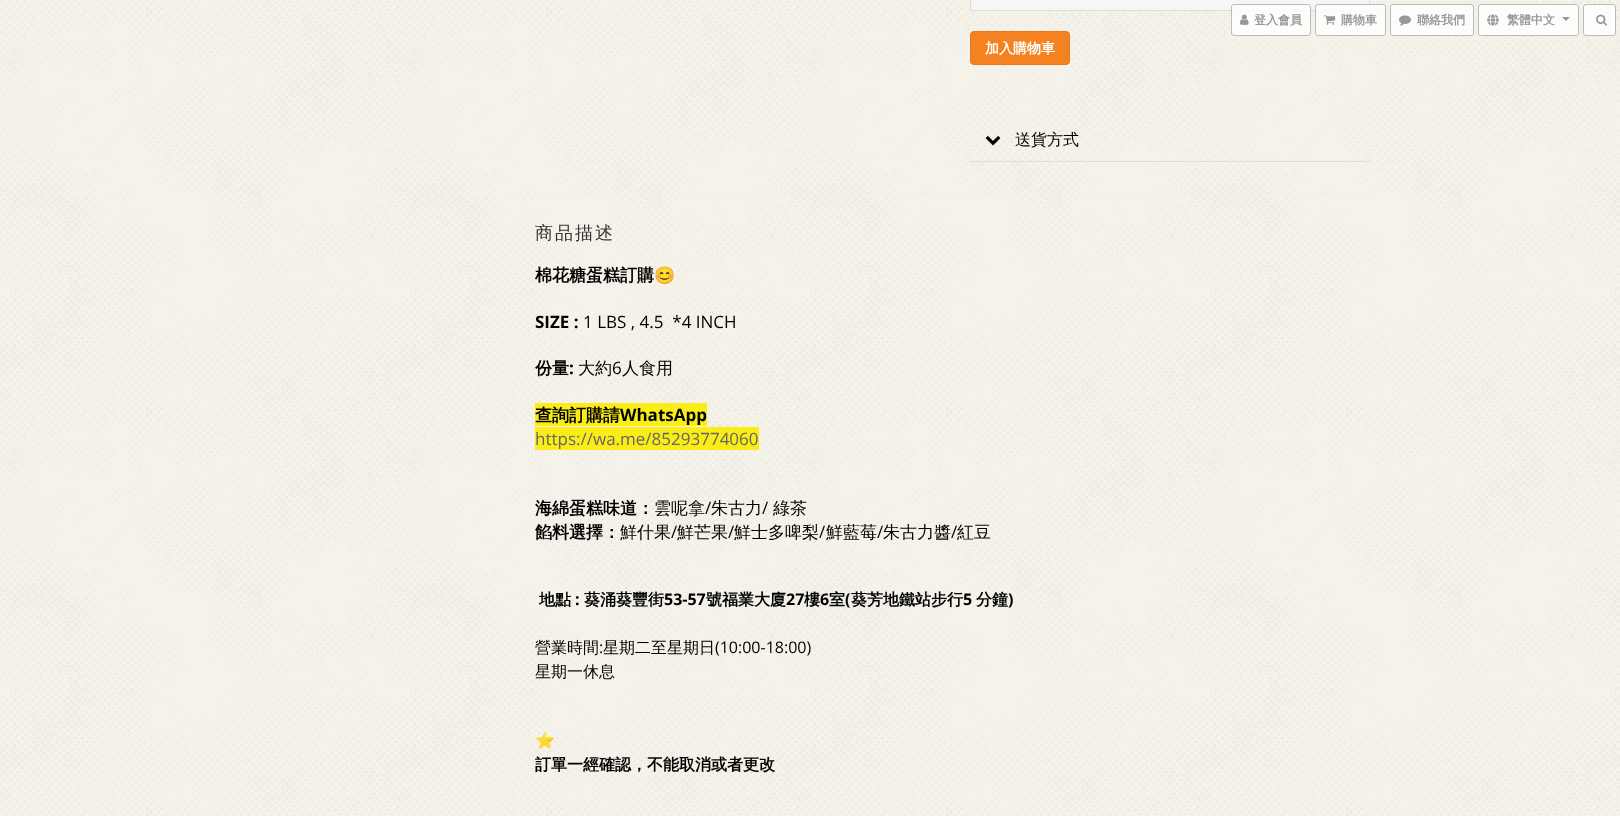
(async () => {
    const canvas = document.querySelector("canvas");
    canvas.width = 1620;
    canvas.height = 816;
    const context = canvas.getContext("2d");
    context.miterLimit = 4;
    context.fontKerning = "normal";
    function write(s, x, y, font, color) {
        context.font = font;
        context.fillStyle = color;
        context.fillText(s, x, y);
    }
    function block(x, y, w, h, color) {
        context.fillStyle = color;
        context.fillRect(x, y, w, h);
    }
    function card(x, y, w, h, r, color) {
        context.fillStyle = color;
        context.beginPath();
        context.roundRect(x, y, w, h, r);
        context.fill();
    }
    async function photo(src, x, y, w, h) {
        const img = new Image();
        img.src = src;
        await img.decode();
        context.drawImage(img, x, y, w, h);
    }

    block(0, 0, 1620, 816, "rgb(255, 255, 255)");
    await photo("media/1.png", 0, 0, 1620, 816);
    context.fillStyle = "rgb(246, 246, 246)";
    context.beginPath();
    context.rect(970.5, -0.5, 399, 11);
    context.fill();
    context.strokeStyle = "rgb(221, 221, 221)";
    context.stroke();
    card(1231, 4, 80, 32, 3, "rgba(255, 255, 255, 0.8)");
    context.beginPath();
    context.roundRect(1231.5, 4.5, 79, 31, 2.5);
    context.strokeStyle = "rgba(170, 170, 170, 0.8)";
    context.stroke();
    await photo("media/2.png", 1240, 14, 9, 11);
    write("登入會員", 1254, 24, "bold 12px WenQuanYi Zen Hei", "rgb(152, 151, 150)");
    card(1315, 4, 71, 32, 3, "rgba(255, 255, 255, 0.8)");
    context.beginPath();
    context.roundRect(1315.5, 4.5, 70, 31, 2.5);
    context.stroke();
    await photo("media/3.png", 1324, 15, 12, 10);
    write("購物車", 1341, 24, "bold 12px WenQuanYi Zen Hei", "rgb(152, 151, 150)");
    card(1390, 4, 84, 32, 3, "rgba(255, 255, 255, 0.8)");
    context.beginPath();
    context.roundRect(1390.5, 4.5, 83, 31, 2.5);
    context.stroke();
    await photo("media/4.png", 1399, 15, 12, 11);
    write("聯絡我們", 1417, 24, "bold 12px WenQuanYi Zen Hei", "rgb(152, 151, 150)");
    card(1478, 4, 101, 32, 3, "rgba(255, 255, 255, 0.8)");
    context.beginPath();
    context.roundRect(1478.5, 4.5, 100, 31, 2.5);
    context.stroke();
    await photo("media/5.png", 1487, 14, 12, 12);
    write("繁體中文", 1507, 24, "bold 12px WenQuanYi Zen Hei", "rgb(152, 151, 150)");
    context.fillStyle = "rgb(151, 151, 150)";
    context.beginPath();
    context.moveTo(1562, 17);
    context.lineTo(1570, 17);
    context.lineTo(1566, 21);
    context.closePath();
    context.fill();
    card(1583, 4, 33, 32, 3, "rgba(255, 255, 255, 0.8)");
    context.beginPath();
    context.roundRect(1583.5, 4.5, 32, 31, 2.5);
    context.stroke();
    await photo("media/6.png", 1596, 14, 11, 12);
    context.fillStyle = "rgb(245, 130, 32)";
    context.beginPath();
    context.roundRect(970.5, 31.5, 99, 33, 3.5);
    context.fill();
    context.strokeStyle = "rgb(228, 121, 30)";
    context.stroke();
    write("加入購物車", 985, 53, "bold 14px WenQuanYi Zen Hei", "rgb(255, 255, 255)");
    block(970, 161, 400, 1, "rgb(221, 221, 221)");
    await photo("media/7.png", 985, 136, 16, 10);
    write("送貨方式", 1015, 145, "500 16px WenQuanYi Zen Hei", "rgb(0, 0, 0)");
    block(535, 192, 840, 1, "rgb(238, 238, 238)");
    context.letterSpacing = "2px";
    write("商品描述", 535, 239, "500 18px WenQuanYi Zen Hei", "rgb(51, 51, 51)");
    context.letterSpacing = "0px";
    write("棉花糖蛋糕訂購", 535, 281, "bold 17px WenQuanYi Zen Hei", "rgb(0, 0, 0)");
    write("😊", 654, 281, "bold 17px Noto Color Emoji", "rgb(0, 0, 0)");
    write("SIZE :", 535, 328, "bold 17px Open Sans", "rgb(0, 0, 0)");
    write("1 LBS , 4.5  *4 INCH", 583, 328, "17px Open Sans", "rgb(0, 0, 0)");
    write("份量", 535, 374, "bold 17px WenQuanYi Zen Hei", "rgb(0, 0, 0)");
    write(":", 569, 374, "bold 17px Open Sans", "rgb(0, 0, 0)");
    write("大約", 578, 374, "500 17px WenQuanYi Zen Hei", "rgb(0, 0, 0)");
    write("6", 612, 374, "17px Open Sans", "rgb(0, 0, 0)");
    write("人食用", 622, 374, "500 17px WenQuanYi Zen Hei", "rgb(0, 0, 0)");
    block(535, 403, 172, 23, "rgb(250, 236, 22)");
    write("查詢訂購請", 535, 421, "bold 17px WenQuanYi Zen Hei", "rgb(0, 0, 0)");
    write("WhatsApp", 620, 421, "bold 17px Open Sans", "rgb(0, 0, 0)");
    block(535, 427, 224, 23, "rgb(250, 236, 22)");
    write("https://wa.me/85293774060", 535, 445, "17px Open Sans", "rgb(102, 102, 102)");
    write("海綿蛋糕味道：", 535, 514, "bold 17px WenQuanYi Zen Hei", "rgb(0, 0, 0)");
    write("雲呢拿", 654, 514, "500 17px WenQuanYi Zen Hei", "rgb(0, 0, 0)");
    write("/", 705, 514, "17px Open Sans", "rgb(0, 0, 0)");
    write("朱古力", 711, 514, "500 17px WenQuanYi Zen Hei", "rgb(0, 0, 0)");
    write("/", 762, 514, "17px Open Sans", "rgb(0, 0, 0)");
    write("綠茶", 773, 514, "500 17px WenQuanYi Zen Hei", "rgb(0, 0, 0)");
    write("餡料選擇：", 535, 538, "bold 17px WenQuanYi Zen Hei", "rgb(0, 0, 0)");
    write("鮮什果", 620, 538, "500 17px WenQuanYi Zen Hei", "rgb(0, 0, 0)");
    write("/", 671, 538, "17px Open Sans", "rgb(0, 0, 0)");
    write("鮮芒果", 677, 538, "500 17px WenQuanYi Zen Hei", "rgb(0, 0, 0)");
    write("/", 728, 538, "17px Open Sans", "rgb(0, 0, 0)");
    write("鮮士多啤梨", 734, 538, "500 17px WenQuanYi Zen Hei", "rgb(0, 0, 0)");
    write("/", 819, 538, "17px Open Sans", "rgb(0, 0, 0)");
    write("鮮藍莓", 826, 538, "500 17px WenQuanYi Zen Hei", "rgb(0, 0, 0)");
    write("/", 877, 538, "17px Open Sans", "rgb(0, 0, 0)");
    write("朱古力醬", 883, 538, "500 17px WenQuanYi Zen Hei", "rgb(0, 0, 0)");
    write("/", 951, 538, "17px Open Sans", "rgb(0, 0, 0)");
    write("紅豆", 957, 538, "500 17px WenQuanYi Zen Hei", "rgb(0, 0, 0)");
    write("地點", 539, 605, "bold 16px WenQuanYi Zen Hei", "rgb(0, 0, 0)");
    write(":", 575, 605, "bold 16px Open Sans", "rgb(0, 0, 0)");
    write("葵涌葵豐街", 584, 605, "bold 16px WenQuanYi Zen Hei", "rgb(0, 0, 0)");
    write("53-57", 664, 605, "bold 16px Open Sans", "rgb(0, 0, 0)");
    write("號福業大廈", 706, 605, "bold 16px WenQuanYi Zen Hei", "rgb(0, 0, 0)");
    write("27", 786, 605, "bold 16px Open Sans", "rgb(0, 0, 0)");
    write("樓", 804, 605, "bold 16px WenQuanYi Zen Hei", "rgb(0, 0, 0)");
    write("6", 820, 605, "bold 16px Open Sans", "rgb(0, 0, 0)");
    write("室", 829, 605, "bold 16px WenQuanYi Zen Hei", "rgb(0, 0, 0)");
    write("(", 845, 605, "bold 16px Open Sans", "rgb(0, 0, 0)");
    write("葵芳地鐵站步行", 851, 605, "bold 16px WenQuanYi Zen Hei", "rgb(0, 0, 0)");
    write("5", 963, 605, "bold 16px Open Sans", "rgb(0, 0, 0)");
    write("分鐘", 976, 605, "bold 16px WenQuanYi Zen Hei", "rgb(0, 0, 0)");
    write(")", 1008, 605, "bold 16px Open Sans", "rgb(0, 0, 0)");
    write("營業時間", 535, 653, "500 16px WenQuanYi Zen Hei", "rgb(0, 0, 0)");
    write(":", 599, 653, "16px Open Sans", "rgb(0, 0, 0)");
    write("星期二至星期日", 603, 653, "500 16px WenQuanYi Zen Hei", "rgb(0, 0, 0)");
    write("(10:00-18:00)", 715, 653, "16px Open Sans", "rgb(0, 0, 0)");
    write("星期一休息", 535, 677, "500 16px WenQuanYi Zen Hei", "rgb(0, 0, 0)");
    write("⭐️", 535, 746, "bold 16px Noto Color Emoji", "rgb(0, 0, 0)");
    write("訂單一經確認，不能取消或者更改", 535, 770, "bold 16px WenQuanYi Zen Hei", "rgb(0, 0, 0)");
})();
